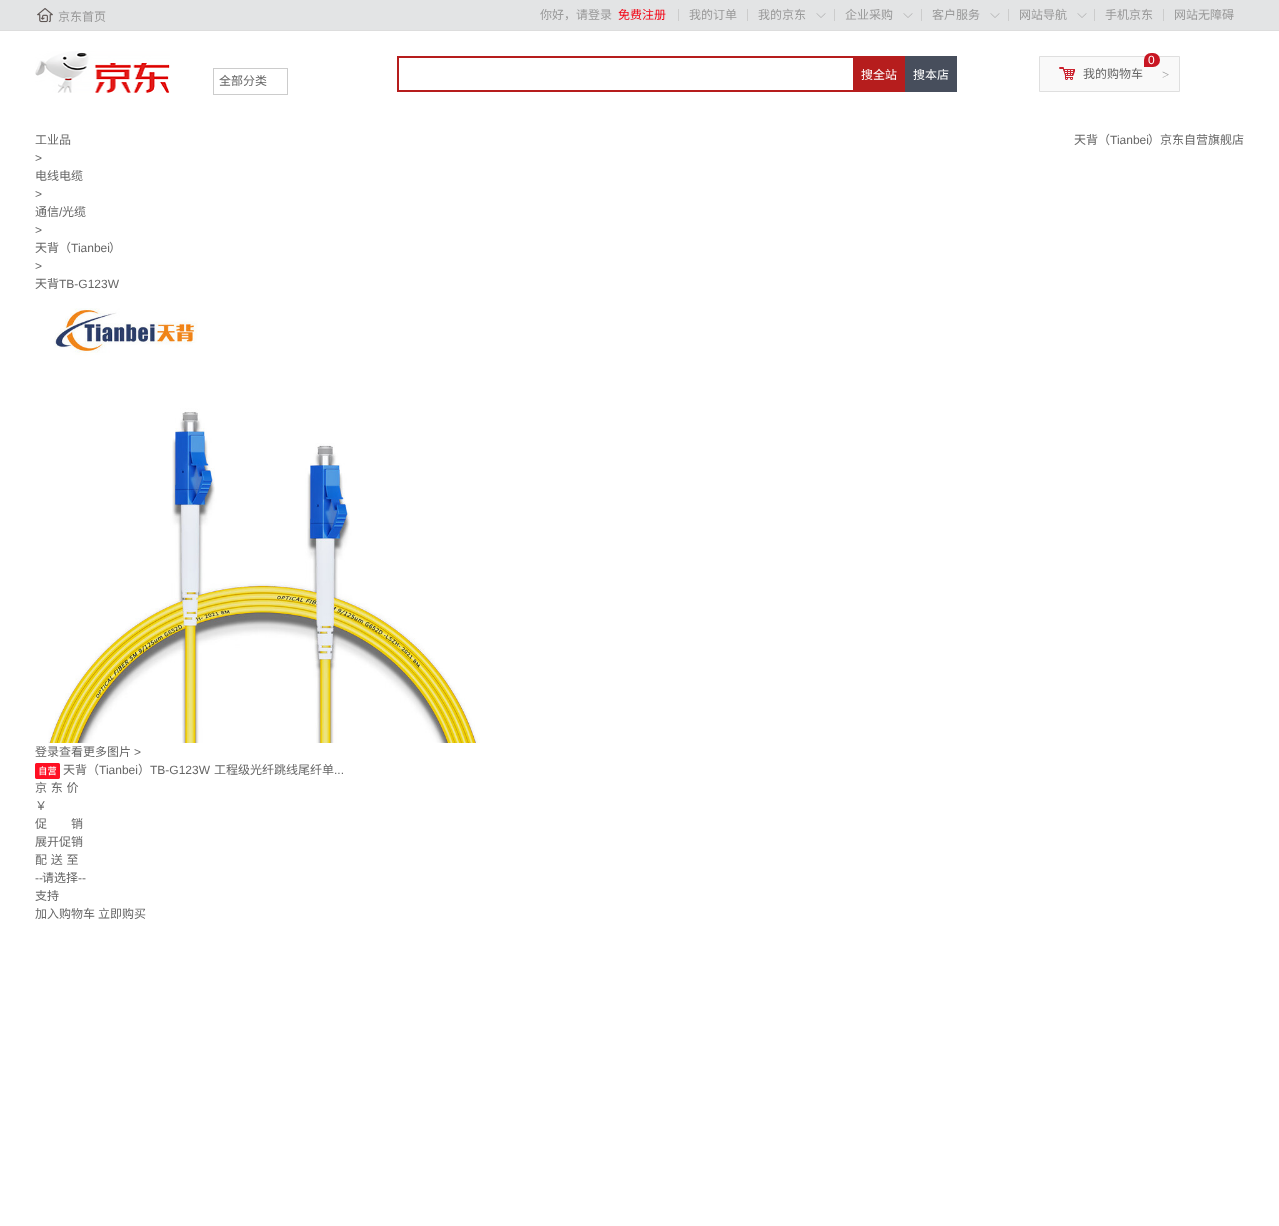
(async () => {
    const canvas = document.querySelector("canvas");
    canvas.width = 1279;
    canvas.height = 1226;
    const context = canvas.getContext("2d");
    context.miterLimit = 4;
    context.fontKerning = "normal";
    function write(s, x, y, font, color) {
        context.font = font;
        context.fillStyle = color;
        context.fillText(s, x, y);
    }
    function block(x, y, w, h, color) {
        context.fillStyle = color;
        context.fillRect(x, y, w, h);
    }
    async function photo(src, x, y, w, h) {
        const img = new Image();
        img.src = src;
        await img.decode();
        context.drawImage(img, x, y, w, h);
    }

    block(0, 0, 1279, 1226, "rgb(255, 255, 255)");
    block(0, 0, 1279, 30, "rgb(227, 228, 229)");
    block(0, 30, 1279, 1, "rgb(221, 221, 221)");
    await photo("media/1.png", 37, 8, 16, 15);
    write("京东首页", 58, 21, "12px Noto Sans CJK SC", "rgb(153, 153, 153)");
    write("你好，请登录", 540, 19, "12px Noto Sans CJK SC", "rgb(153, 153, 153)");
    write("免费注册", 618, 19, "12px Noto Sans CJK SC", "rgb(243, 2, 19)");
    block(678, 9, 1, 12, "rgb(204, 204, 204)");
    write("我的订单", 689, 19, "12px Noto Sans CJK SC", "rgb(153, 153, 153)");
    block(747, 9, 1, 12, "rgb(204, 204, 204)");
    write("我的京东", 758, 19, "12px Noto Sans CJK SC", "rgb(153, 153, 153)");
    await photo("media/2.png", 816, 13, 10, 5);
    block(834, 9, 1, 12, "rgb(204, 204, 204)");
    write("企业采购", 845, 19, "12px Noto Sans CJK SC", "rgb(153, 153, 153)");
    await photo("media/2.png", 903, 13, 10, 5);
    block(921, 9, 1, 12, "rgb(204, 204, 204)");
    write("客户服务", 932, 19, "12px Noto Sans CJK SC", "rgb(153, 153, 153)");
    await photo("media/2.png", 990, 13, 10, 5);
    block(1008, 9, 1, 12, "rgb(204, 204, 204)");
    write("网站导航", 1019, 19, "12px Noto Sans CJK SC", "rgb(153, 153, 153)");
    await photo("media/2.png", 1077, 13, 10, 5);
    block(1094, 9, 1, 12, "rgb(204, 204, 204)");
    write("手机京东", 1105, 19, "12px Noto Sans CJK SC", "rgb(153, 153, 153)");
    block(1163, 9, 1, 12, "rgb(204, 204, 204)");
    write("网站无障碍", 1174, 19, "12px Noto Sans CJK SC", "rgb(153, 153, 153)");
    await photo("media/3.png", 35, 51, 135, 42);
    context.strokeStyle = "rgb(204, 204, 204)";
    context.strokeRect(213.5, 68.5, 74, 26);
    write("全部分类", 219, 85, "12px Noto Sans CJK SC", "rgb(102, 102, 102)");
    block(397, 56, 456, 2, "rgb(182, 29, 29)");
    block(397, 90, 456, 2, "rgb(182, 29, 29)");
    block(397, 56, 2, 36, "rgb(182, 29, 29)");
    block(853, 56, 52, 36, "rgb(182, 29, 29)");
    write("搜全站", 861, 79, "12px Noto Sans CJK SC", "rgb(255, 255, 255)");
    block(905, 56, 52, 36, "rgb(71, 78, 92)");
    write("搜本店", 913, 79, "12px Noto Sans CJK SC", "rgb(255, 255, 255)");
    context.fillStyle = "rgb(249, 249, 249)";
    context.beginPath();
    context.rect(1039.5, 56.5, 140, 35);
    context.fill();
    context.strokeStyle = "rgb(223, 223, 223)";
    context.stroke();
    context.fillStyle = "rgb(200, 22, 35)";
    context.beginPath();
    context.roundRect(1144, 53, 16, 14, [7, 7, 7, 0]);
    context.fill();
    write("0", 1148, 64, "12px Liberation Sans", "rgb(255, 255, 255)");
    await photo("media/4.png", 1059, 67, 16, 13);
    write("我的购物车", 1083, 78, "12px Noto Sans CJK SC", "rgb(102, 102, 102)");
    write(">", 1162, 79, "13px Liberation Serif", "rgb(153, 153, 153)");
    write("工业品", 35, 144, "12px Noto Sans CJK SC", "rgb(102, 102, 102)");
    write(">", 35, 162, "12px Liberation Sans", "rgb(102, 102, 102)");
    write("电线电缆", 35, 180, "12px Noto Sans CJK SC", "rgb(102, 102, 102)");
    write(">", 35, 198, "12px Liberation Sans", "rgb(102, 102, 102)");
    write("通信", 35, 216, "12px Noto Sans CJK SC", "rgb(102, 102, 102)");
    write("/", 59, 216, "12px Liberation Sans", "rgb(102, 102, 102)");
    write("光缆", 62, 216, "12px Noto Sans CJK SC", "rgb(102, 102, 102)");
    write(">", 35, 234, "12px Liberation Sans", "rgb(102, 102, 102)");
    write("天背（", 35, 252, "12px Noto Sans CJK SC", "rgb(102, 102, 102)");
    write("Tianbei", 71, 252, "12px Liberation Sans", "rgb(102, 102, 102)");
    write("）", 109, 252, "12px Noto Sans CJK SC", "rgb(102, 102, 102)");
    write(">", 35, 270, "12px Liberation Sans", "rgb(102, 102, 102)");
    write("天背", 35, 288, "12px Noto Sans CJK SC", "rgb(102, 102, 102)");
    write("TB-G123W", 59, 288, "12px Liberation Sans", "rgb(102, 102, 102)");
    write("天背（", 1074, 144, "12px Noto Sans CJK SC", "rgb(102, 102, 102)");
    write("Tianbei", 1110, 144, "12px Liberation Sans", "rgb(102, 102, 102)");
    write("）京东自营旗舰店", 1148, 144, "12px Noto Sans CJK SC", "rgb(102, 102, 102)");
    await photo("media/5.png", 48, 308, 432, 435);
    write("登录查看更多图片", 35, 756, "12px Noto Sans CJK SC", "rgb(102, 102, 102)");
    write(">", 134, 756, "12px Liberation Sans", "rgb(102, 102, 102)");
    await photo("media/6.png", 35, 763, 25, 16);
    write("天背（", 63, 774, "12px Noto Sans CJK SC", "rgb(102, 102, 102)");
    write("Tianbei", 99, 774, "12px Liberation Sans", "rgb(102, 102, 102)");
    write("）", 138, 774, "12px Noto Sans CJK SC", "rgb(102, 102, 102)");
    write("TB-G123W", 150, 774, "12px Liberation Sans", "rgb(102, 102, 102)");
    write("工程级光纤跳线尾纤单", 214, 774, "12px Noto Sans CJK SC", "rgb(102, 102, 102)");
    write("...", 334, 774, "12px Liberation Sans", "rgb(102, 102, 102)");
    context.wordSpacing = "1px";
    write("京 东 价", 35, 792, "12px Noto Sans CJK SC", "rgb(102, 102, 102)");
    context.wordSpacing = "0px";
    write("￥", 35, 810, "12px Noto Sans CJK SC", "rgb(102, 102, 102)");
    write("促　　销", 35, 828, "12px Noto Sans CJK SC", "rgb(102, 102, 102)");
    write("展开促销", 35, 846, "12px Noto Sans CJK SC", "rgb(102, 102, 102)");
    context.wordSpacing = "1px";
    write("配 送 至", 35, 864, "12px Noto Sans CJK SC", "rgb(102, 102, 102)");
    context.wordSpacing = "0px";
    write("--", 35, 882, "12px Liberation Sans", "rgb(102, 102, 102)");
    write("请选择", 42, 882, "12px Noto Sans CJK SC", "rgb(102, 102, 102)");
    write("--", 78, 882, "12px Liberation Sans", "rgb(102, 102, 102)");
    write("支持", 35, 900, "12px Noto Sans CJK SC", "rgb(102, 102, 102)");
    write("加入购物车", 35, 918, "12px Noto Sans CJK SC", "rgb(102, 102, 102)");
    write("立即购买", 98, 918, "12px Noto Sans CJK SC", "rgb(102, 102, 102)");
})();
